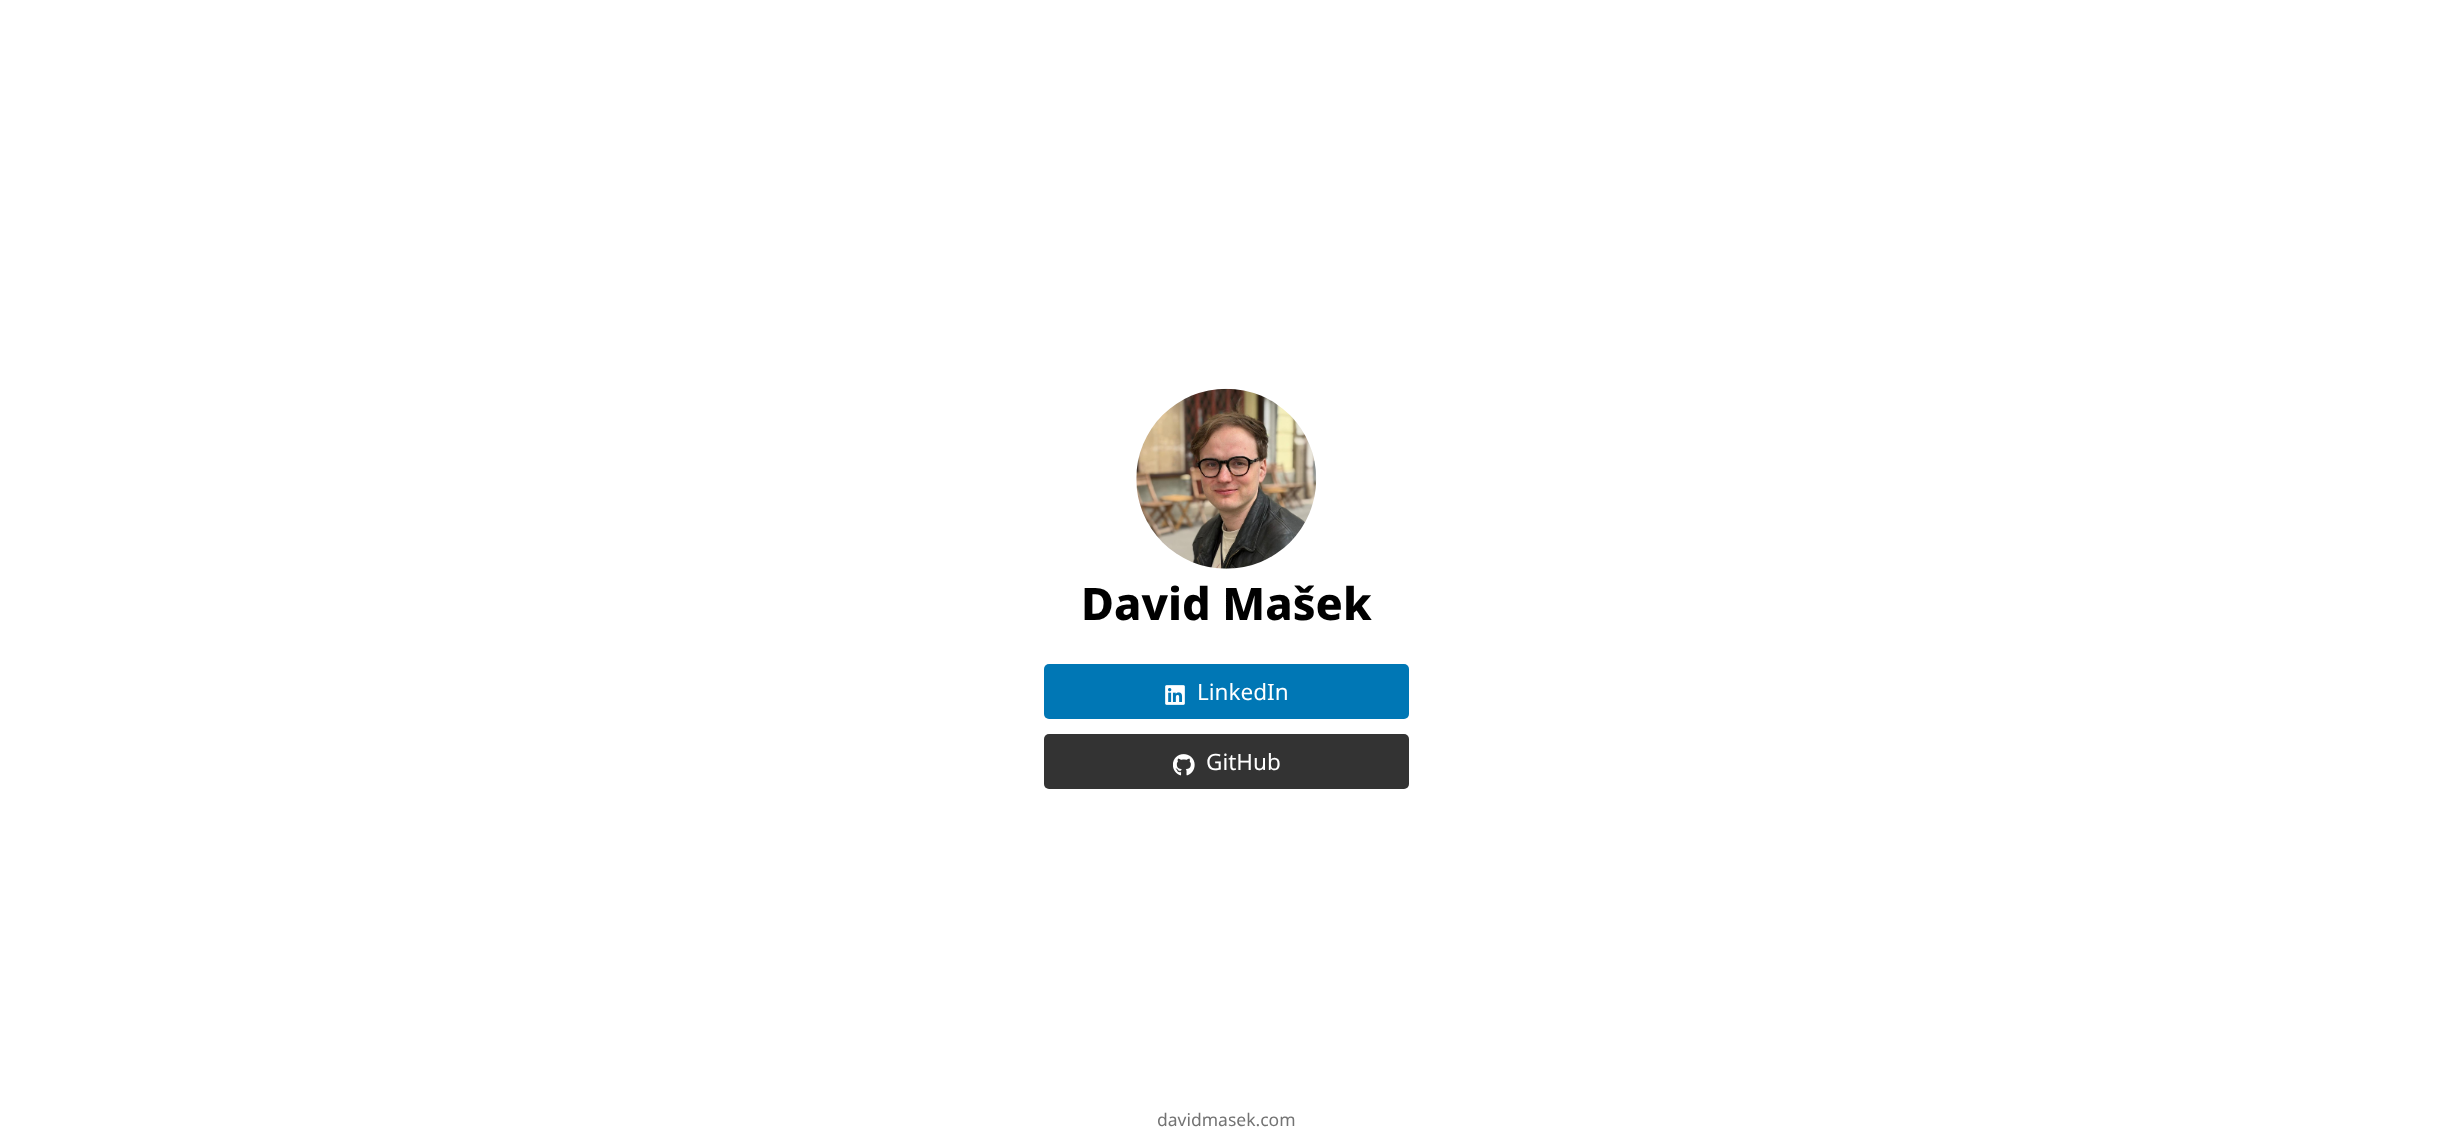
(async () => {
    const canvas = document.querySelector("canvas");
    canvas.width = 2452;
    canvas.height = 1147;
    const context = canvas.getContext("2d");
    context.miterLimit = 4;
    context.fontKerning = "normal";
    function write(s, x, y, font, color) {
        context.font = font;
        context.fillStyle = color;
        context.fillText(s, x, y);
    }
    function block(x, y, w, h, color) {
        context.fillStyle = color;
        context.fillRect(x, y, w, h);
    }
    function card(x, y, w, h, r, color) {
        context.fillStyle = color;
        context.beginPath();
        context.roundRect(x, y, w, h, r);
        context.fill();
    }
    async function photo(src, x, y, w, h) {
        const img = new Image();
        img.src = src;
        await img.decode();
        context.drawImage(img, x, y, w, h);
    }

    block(0, 0, 2452, 1147, "rgb(255, 255, 255)");
    await photo("media/1.png", 1136, 388, 181, 181);
    write("David Mašek", 1081, 620, "800 45px Noto Sans", "rgb(0, 0, 0)");
    card(1044, 664, 365, 55, 5, "rgb(0, 119, 181)");
    await photo("media/2.png", 1165, 685, 20, 20);
    write("LinkedIn", 1197, 700, "22.5px Noto Sans", "rgb(255, 255, 255)");
    card(1044, 734, 365, 55, 5, "rgb(51, 51, 51)");
    await photo("media/3.png", 1173, 754, 22, 22);
    write("GitHub", 1206, 770, "22.5px Noto Sans", "rgb(255, 255, 255)");
    write("davidmasek.com", 1157, 1126, "17.5px Noto Sans", "rgb(115, 115, 115)");
})();
